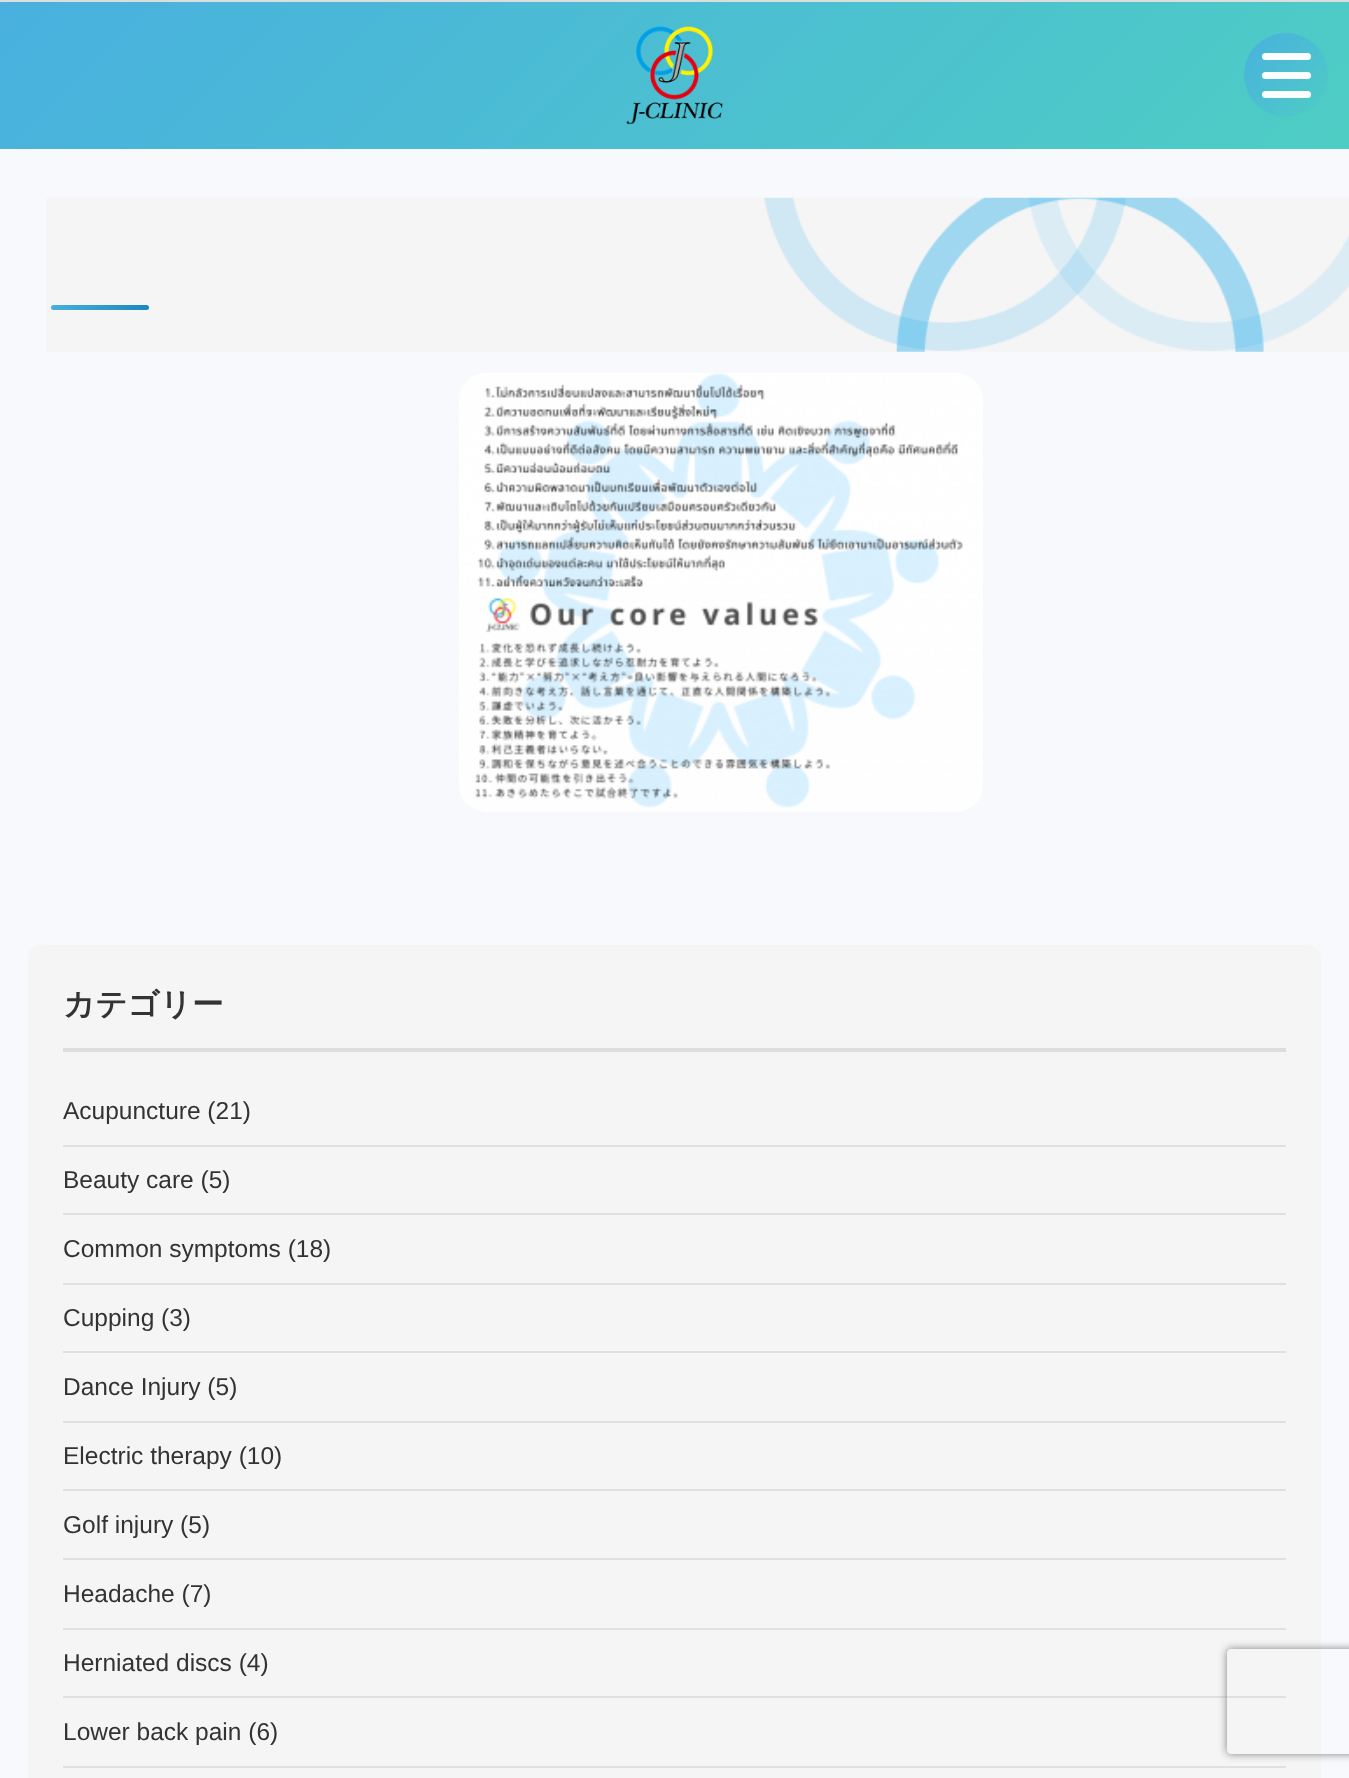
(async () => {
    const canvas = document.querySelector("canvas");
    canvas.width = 1349;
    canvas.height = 1778;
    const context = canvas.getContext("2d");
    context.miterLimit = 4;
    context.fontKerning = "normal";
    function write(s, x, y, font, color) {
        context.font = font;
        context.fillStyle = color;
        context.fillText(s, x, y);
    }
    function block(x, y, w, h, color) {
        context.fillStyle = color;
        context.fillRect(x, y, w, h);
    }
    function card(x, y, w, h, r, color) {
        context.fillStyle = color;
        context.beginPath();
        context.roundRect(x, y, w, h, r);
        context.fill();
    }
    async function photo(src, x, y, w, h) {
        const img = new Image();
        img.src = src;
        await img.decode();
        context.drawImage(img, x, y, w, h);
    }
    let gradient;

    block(0, 0, 1349, 1778, "rgb(247, 249, 252)");
    block(0, 0, 1349, 2, "rgb(221, 221, 221)");
    gradient = context.createLinearGradient(301, -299, 1049, 449);
    gradient.addColorStop(0, "rgb(73, 176, 223)");
    gradient.addColorStop(1, "rgb(78, 205, 196)");
    context.fillStyle = gradient;
    context.fillRect(0, 2, 1349, 147);
    await photo("media/1.png", 626, 26, 97, 99);
    gradient = context.createLinearGradient(1244, 33, 1328, 117);
    gradient.addColorStop(0, "rgb(73, 176, 223)");
    gradient.addColorStop(1, "rgb(78, 205, 196)");
    context.fillStyle = gradient;
    context.beginPath();
    context.arc(1286, 75, 42, 0, Math.PI * 2);
    context.fill();
    card(1262, 53, 49, 7, 3.5, "rgba(255, 255, 255, 0.98)");
    card(1262, 72, 49, 7, 3.5, "rgba(255, 255, 255, 0.98)");
    card(1262, 91, 49, 7, 3.5, "rgba(255, 255, 255, 0.98)");
    await photo("media/2.png", 46, 197, 1303, 155);
    gradient = context.createLinearGradient(50, 307, 148, 307);
    gradient.addColorStop(0, "rgb(73, 176, 223)");
    gradient.addColorStop(1, "rgb(29, 136, 189)");
    context.fillStyle = gradient;
    context.beginPath();
    context.roundRect(51, 305, 98, 5, 2.5);
    context.fill();
    await photo("media/3.png", 459, 373, 524, 439);
    card(28, 945, 1293, 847, 14, "rgb(245, 245, 245)");
    block(63, 1048, 1223, 4, "rgb(221, 221, 221)");
    write("カテゴリー", 63, 1015, "bold 31.5px WenQuanYi Zen Hei", "rgb(51, 51, 51)");
    block(63, 1145, 1223, 2, "rgb(224, 224, 224)");
    write("Acupuncture (21)", 63, 1119, "24.5px Liberation Sans", "rgb(51, 51, 51)");
    block(63, 1213, 1223, 2, "rgb(224, 224, 224)");
    write("Beauty care (5)", 63, 1188, "24.5px Liberation Sans", "rgb(51, 51, 51)");
    block(63, 1283, 1223, 2, "rgb(224, 224, 224)");
    write("Common symptoms (18)", 63, 1257, "24.5px Liberation Sans", "rgb(51, 51, 51)");
    block(63, 1351, 1223, 2, "rgb(224, 224, 224)");
    write("Cupping (3)", 63, 1326, "24.5px Liberation Sans", "rgb(51, 51, 51)");
    block(63, 1421, 1223, 2, "rgb(224, 224, 224)");
    write("Dance Injury (5)", 63, 1395, "24.5px Liberation Sans", "rgb(51, 51, 51)");
    block(63, 1489, 1223, 2, "rgb(224, 224, 224)");
    write("Electric therapy (10)", 63, 1464, "24.5px Liberation Sans", "rgb(51, 51, 51)");
    block(63, 1558, 1223, 2, "rgb(224, 224, 224)");
    write("Golf injury (5)", 63, 1533, "24.5px Liberation Sans", "rgb(51, 51, 51)");
    block(63, 1628, 1223, 2, "rgb(224, 224, 224)");
    write("Headache (7)", 63, 1602, "24.5px Liberation Sans", "rgb(51, 51, 51)");
    block(63, 1696, 1223, 2, "rgb(224, 224, 224)");
    write("Herniated discs (4)", 63, 1671, "24.5px Liberation Sans", "rgb(51, 51, 51)");
    block(63, 1766, 1223, 2, "rgb(224, 224, 224)");
    write("Lower back pain (6)", 63, 1740, "24.5px Liberation Sans", "rgb(51, 51, 51)");
    context.save();
    context.beginPath();
    context.moveTo(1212, 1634);
    context.lineTo(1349, 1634);
    context.lineTo(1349, 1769);
    context.lineTo(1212, 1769);
    context.closePath();
    context.moveTo(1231, 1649);
    context.lineTo(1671, 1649);
    context.bezierCurveTo(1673, 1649, 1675, 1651, 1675, 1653);
    context.lineTo(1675, 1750);
    context.bezierCurveTo(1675, 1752, 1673, 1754, 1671, 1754);
    context.lineTo(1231, 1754);
    context.bezierCurveTo(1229, 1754, 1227, 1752, 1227, 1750);
    context.lineTo(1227, 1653);
    context.bezierCurveTo(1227, 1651, 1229, 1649, 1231, 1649);
    context.closePath();
    context.clip("evenodd");
    context.fillStyle = "rgb(128, 128, 128)";
    context.filter = "blur(4.5px)";
    context.beginPath();
    context.roundRect(1227, 1649, 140, 105, 4);
    context.fill();
    context.filter = "none";
    context.restore();
})();
